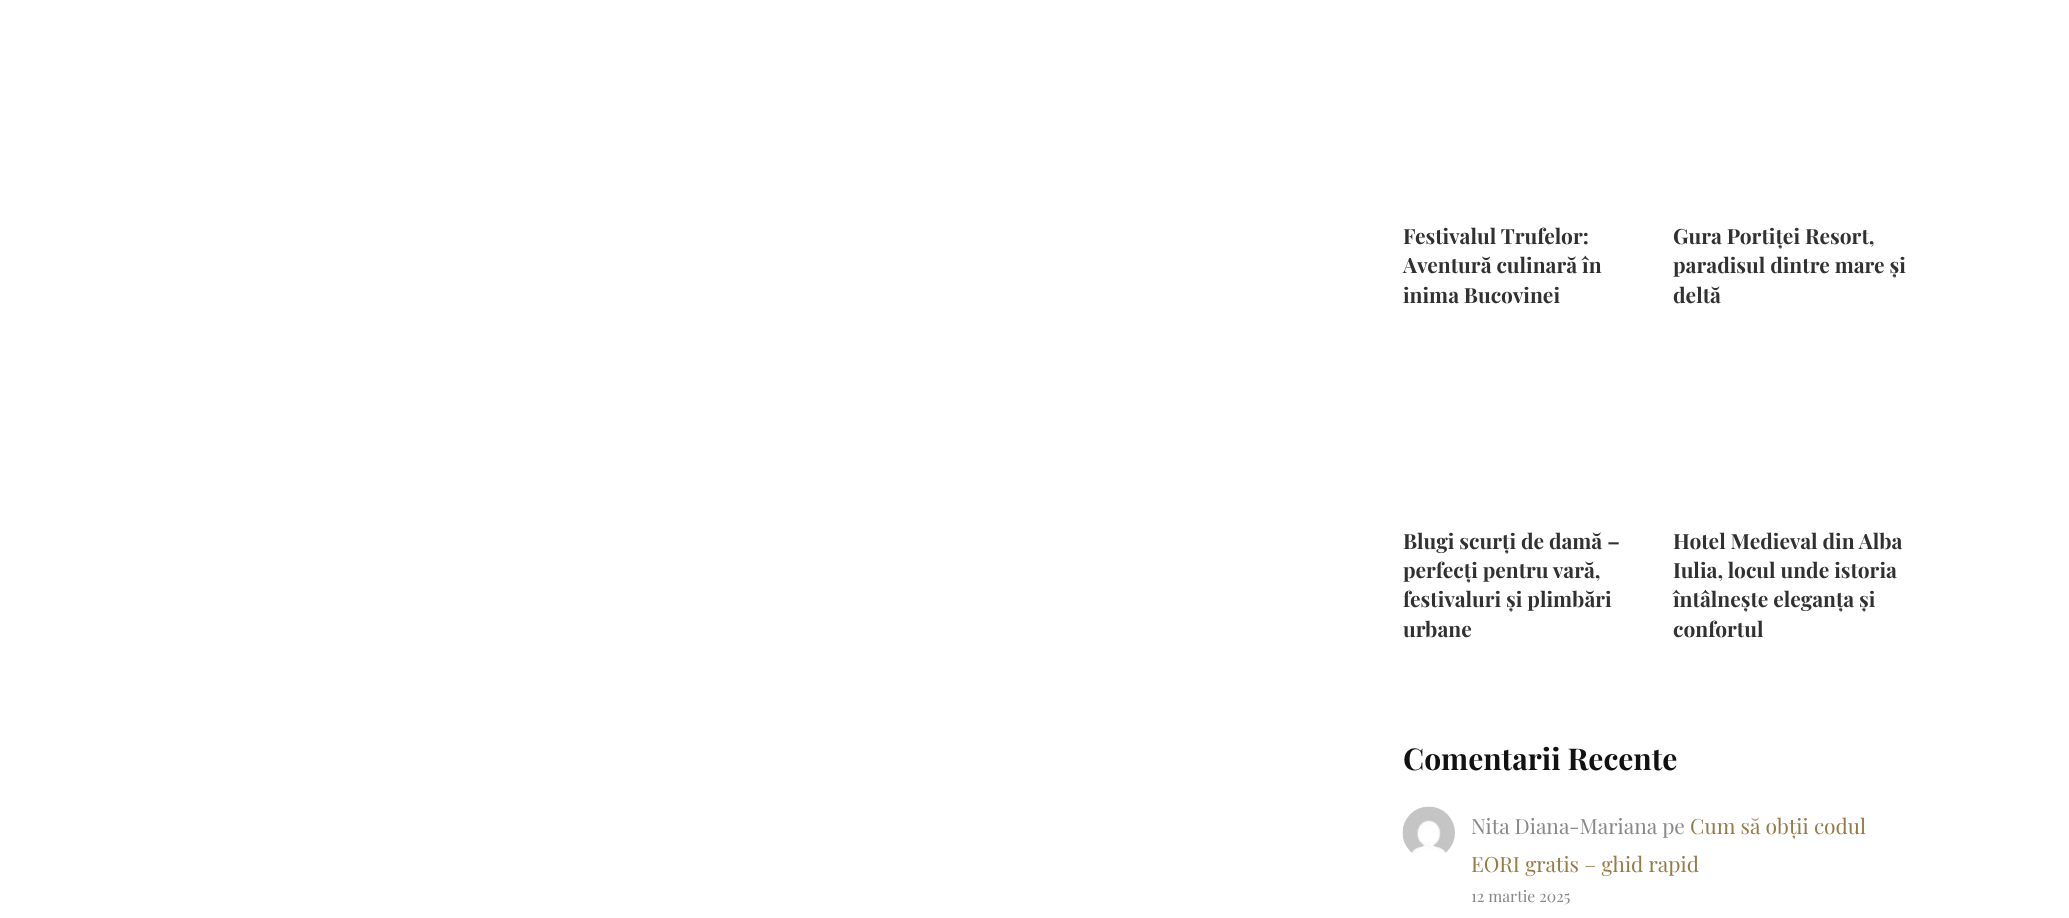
(async () => {
    const canvas = document.querySelector("canvas");
    canvas.width = 2069;
    canvas.height = 918;
    const context = canvas.getContext("2d");
    context.miterLimit = 4;
    context.fontKerning = "normal";
    function write(s, x, y, font, color) {
        context.font = font;
        context.fillStyle = color;
        context.fillText(s, x, y);
    }
    function block(x, y, w, h, color) {
        context.fillStyle = color;
        context.fillRect(x, y, w, h);
    }
    async function photo(src, x, y, w, h) {
        const img = new Image();
        img.src = src;
        await img.decode();
        context.drawImage(img, x, y, w, h);
    }

    block(0, 0, 2069, 918, "rgb(255, 255, 255)");
    write("Festivalul Trufelor:", 1403, 244, "bold 21px Playfair Display", "rgb(49, 49, 49)");
    write("Aventură culinară în", 1403, 273, "bold 21px Playfair Display", "rgb(49, 49, 49)");
    write("inima Bucovinei", 1403, 303, "bold 21px Playfair Display", "rgb(49, 49, 49)");
    write("Gura Portiței Resort,", 1673, 244, "bold 21px Playfair Display", "rgb(49, 49, 49)");
    write("paradisul dintre mare și", 1673, 273, "bold 21px Playfair Display", "rgb(49, 49, 49)");
    write("deltă", 1673, 303, "bold 21px Playfair Display", "rgb(49, 49, 49)");
    write("Blugi scurți de damă –", 1403, 549, "bold 21px Playfair Display", "rgb(49, 49, 49)");
    write("perfecți pentru vară,", 1403, 578, "bold 21px Playfair Display", "rgb(49, 49, 49)");
    write("festivaluri și plimbări", 1403, 607, "bold 21px Playfair Display", "rgb(49, 49, 49)");
    write("urbane", 1403, 637, "bold 21px Playfair Display", "rgb(49, 49, 49)");
    write("Hotel Medieval din Alba", 1673, 549, "bold 21px Playfair Display", "rgb(49, 49, 49)");
    write("Iulia, locul unde istoria", 1673, 578, "bold 21px Playfair Display", "rgb(49, 49, 49)");
    write("întâlnește eleganța și", 1673, 607, "bold 21px Playfair Display", "rgb(49, 49, 49)");
    write("confortul", 1673, 637, "bold 21px Playfair Display", "rgb(49, 49, 49)");
    write("Comentarii Recente", 1403, 770, "bold 30px Playfair Display", "rgb(17, 17, 17)");
    await photo("media/1.png", 1402, 806, 53, 47);
    write("Nita Diana-Mariana pe", 1471, 834, "21px Playfair Display", "rgb(136, 136, 136)");
    write("Cum să obții codul", 1690, 834, "21px Playfair Display", "rgb(150, 123, 70)");
    write("EORI gratis – ghid rapid", 1471, 872, "21px Playfair Display", "rgb(150, 123, 70)");
    write("12 martie 2025", 1471, 902, "15.75px Playfair Display", "rgb(136, 136, 136)");
})();
